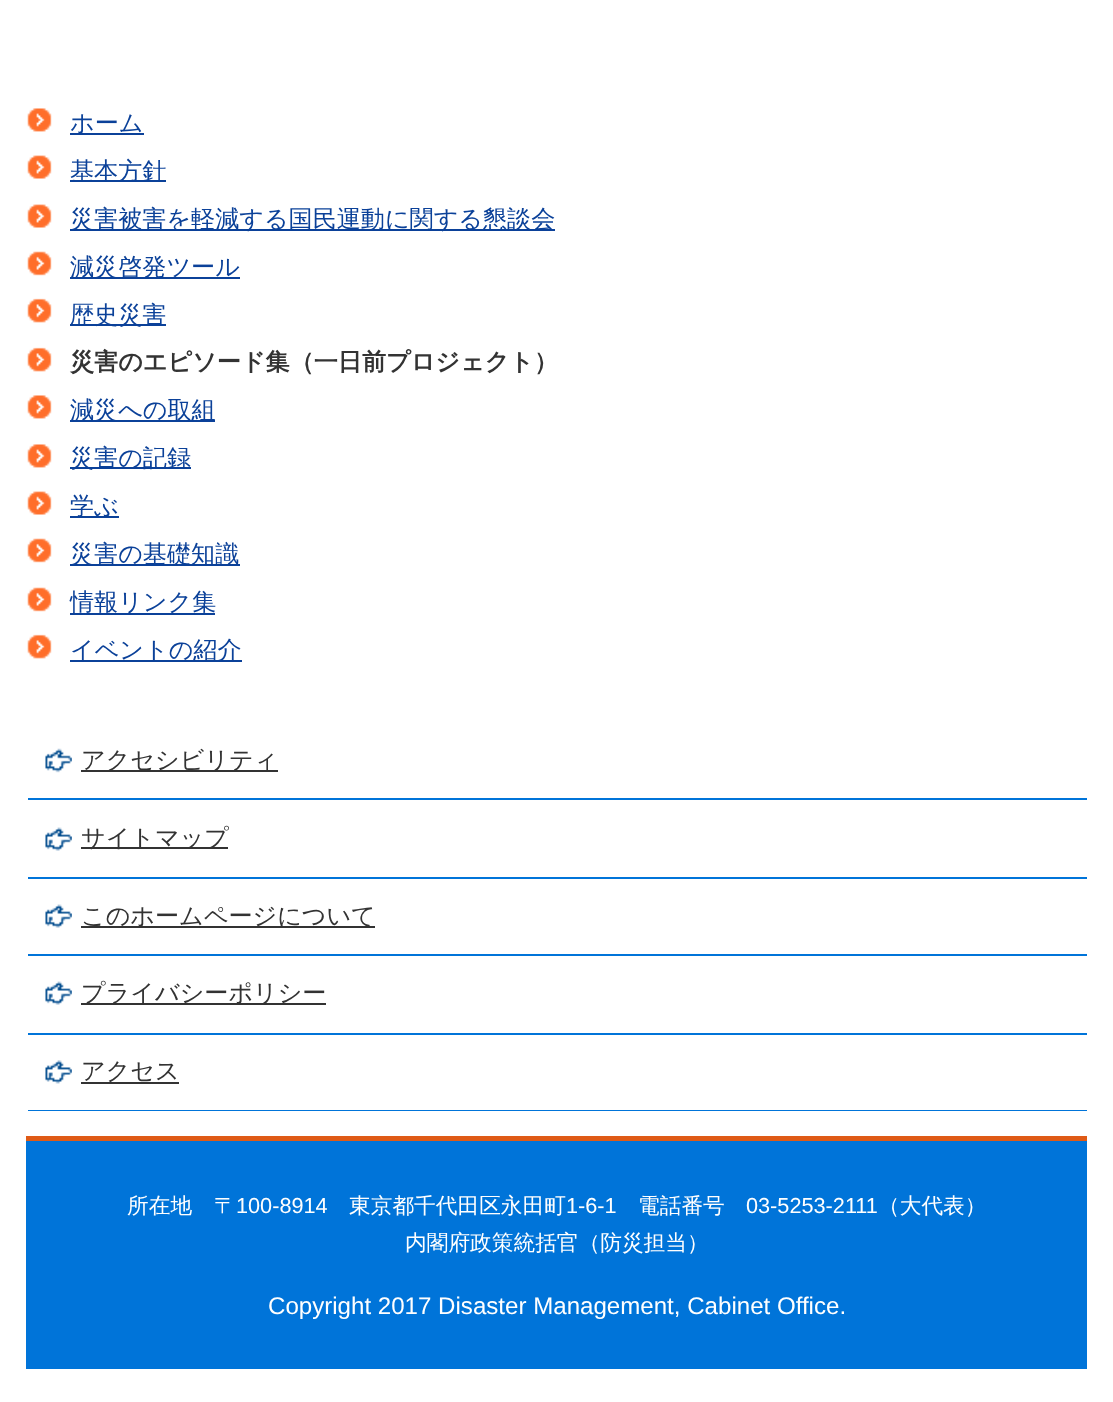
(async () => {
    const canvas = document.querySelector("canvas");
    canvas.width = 1113;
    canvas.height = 1402;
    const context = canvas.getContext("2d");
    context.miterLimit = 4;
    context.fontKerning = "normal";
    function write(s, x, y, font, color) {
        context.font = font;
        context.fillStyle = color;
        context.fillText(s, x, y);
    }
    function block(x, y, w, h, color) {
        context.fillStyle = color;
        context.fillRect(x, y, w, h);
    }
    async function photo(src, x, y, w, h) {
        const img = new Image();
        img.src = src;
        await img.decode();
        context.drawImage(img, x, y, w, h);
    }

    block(0, 0, 1113, 1402, "rgb(255, 255, 255)");
    await photo("media/1.png", 27, 108, 25, 24);
    block(70, 133, 74, 2, "rgb(11, 65, 153)");
    write("ホーム", 70, 131, "500 24.1px WenQuanYi Zen Hei", "rgb(11, 65, 153)");
    await photo("media/2.png", 27, 155, 25, 24);
    block(70, 180, 96, 2, "rgb(11, 65, 153)");
    write("基本方針", 70, 179, "500 24.1px WenQuanYi Zen Hei", "rgb(11, 65, 153)");
    await photo("media/2.png", 27, 204, 25, 24);
    block(70, 229, 485, 2, "rgb(11, 65, 153)");
    write("災害被害を軽減する国民運動に関する懇談会", 70, 227, "500 24.1px WenQuanYi Zen Hei", "rgb(11, 65, 153)");
    await photo("media/3.png", 27, 251, 25, 25);
    block(70, 277, 170, 2, "rgb(11, 65, 153)");
    write("減災啓発ツール", 70, 275, "500 24.1px WenQuanYi Zen Hei", "rgb(11, 65, 153)");
    await photo("media/4.png", 27, 298, 25, 25);
    block(70, 324, 96, 2, "rgb(11, 65, 153)");
    write("歴史災害", 70, 323, "500 24.1px WenQuanYi Zen Hei", "rgb(11, 65, 153)");
    await photo("media/4.png", 27, 347, 25, 25);
    write("災害のエピソード集（一日前プロジェクト）", 70, 370, "bold 24.1px WenQuanYi Zen Hei", "rgb(51, 51, 51)");
    await photo("media/5.png", 27, 395, 25, 24);
    block(70, 420, 145, 2, "rgb(11, 65, 153)");
    write("減災への取組", 70, 418, "500 24.1px WenQuanYi Zen Hei", "rgb(11, 65, 153)");
    await photo("media/5.png", 27, 444, 25, 24);
    block(70, 467, 121, 2, "rgb(11, 65, 153)");
    write("災害の記録", 70, 466, "500 24.1px WenQuanYi Zen Hei", "rgb(11, 65, 153)");
    await photo("media/2.png", 27, 491, 25, 24);
    block(70, 516, 49, 2, "rgb(11, 65, 153)");
    write("学ぶ", 70, 514, "500 24.1px WenQuanYi Zen Hei", "rgb(11, 65, 153)");
    await photo("media/3.png", 27, 538, 25, 25);
    block(70, 564, 170, 2, "rgb(11, 65, 153)");
    write("災害の基礎知識", 70, 562, "500 24.1px WenQuanYi Zen Hei", "rgb(11, 65, 153)");
    await photo("media/3.png", 27, 587, 25, 25);
    block(70, 613, 145, 2, "rgb(11, 65, 153)");
    write("情報リンク集", 70, 610, "500 24.1px WenQuanYi Zen Hei", "rgb(11, 65, 153)");
    await photo("media/4.png", 27, 634, 25, 25);
    block(70, 660, 172, 2, "rgb(11, 65, 153)");
    write("イベントの紹介", 70, 658, "500 24.1px WenQuanYi Zen Hei", "rgb(11, 65, 153)");
    block(28, 798, 1059, 2, "rgb(0, 116, 217)");
    await photo("media/6.png", 45, 748, 27, 25);
    block(81, 770, 197, 2, "rgb(51, 51, 51)");
    write("アクセシビリティ", 81, 768, "500 24.1px WenQuanYi Zen Hei", "rgb(51, 51, 51)");
    block(28, 877, 1059, 2, "rgb(0, 116, 217)");
    await photo("media/7.png", 45, 827, 27, 24);
    block(81, 847, 147, 2, "rgb(51, 51, 51)");
    write("サイトマップ", 81, 846, "500 24.1px WenQuanYi Zen Hei", "rgb(51, 51, 51)");
    block(28, 954, 1059, 2, "rgb(0, 116, 217)");
    await photo("media/7.png", 45, 904, 27, 24);
    block(81, 926, 294, 2, "rgb(51, 51, 51)");
    write("このホームページについて", 81, 924, "500 24.1px WenQuanYi Zen Hei", "rgb(51, 51, 51)");
    block(28, 1033, 1059, 2, "rgb(0, 116, 217)");
    await photo("media/7.png", 45, 981, 27, 24);
    block(81, 1003, 245, 2, "rgb(51, 51, 51)");
    write("プライバシーポリシー", 81, 1001, "500 24.1px WenQuanYi Zen Hei", "rgb(51, 51, 51)");
    block(28, 1110, 1059, 1, "rgb(0, 116, 217)");
    await photo("media/8.png", 45, 1060, 27, 24);
    block(81, 1082, 98, 2, "rgb(51, 51, 51)");
    write("アクセス", 81, 1079, "500 24.1px WenQuanYi Zen Hei", "rgb(51, 51, 51)");
    block(26, 1141, 1061, 228, "rgb(0, 116, 217)");
    block(26, 1136, 1061, 5, "rgb(223, 90, 22)");
    write("所在地", 127, 1213, "500 21.7px WenQuanYi Zen Hei", "rgb(255, 255, 255)");
    write("〒", 214, 1213, "500 21.7px WenQuanYi Zen Hei", "rgb(255, 255, 255)");
    write("100-8914", 236, 1213, "21.7px Liberation Sans", "rgb(255, 255, 255)");
    write("東京都千代田区永田町", 349, 1213, "500 21.7px WenQuanYi Zen Hei", "rgb(255, 255, 255)");
    write("1-6-1", 566, 1213, "21.7px Liberation Sans", "rgb(255, 255, 255)");
    write("電話番号", 638, 1213, "500 21.7px WenQuanYi Zen Hei", "rgb(255, 255, 255)");
    write("03-5253-2111", 746, 1213, "21.7px Liberation Sans", "rgb(255, 255, 255)");
    write("（大代表）", 878, 1213, "500 21.7px WenQuanYi Zen Hei", "rgb(255, 255, 255)");
    write("内閣府政策統括官（防災担当）", 405, 1250, "500 21.7px WenQuanYi Zen Hei", "rgb(255, 255, 255)");
    write("Copyright 2017 Disaster Management, Cabinet Office.", 268, 1314, "24.1px Liberation Sans", "rgb(255, 255, 255)");
})();
